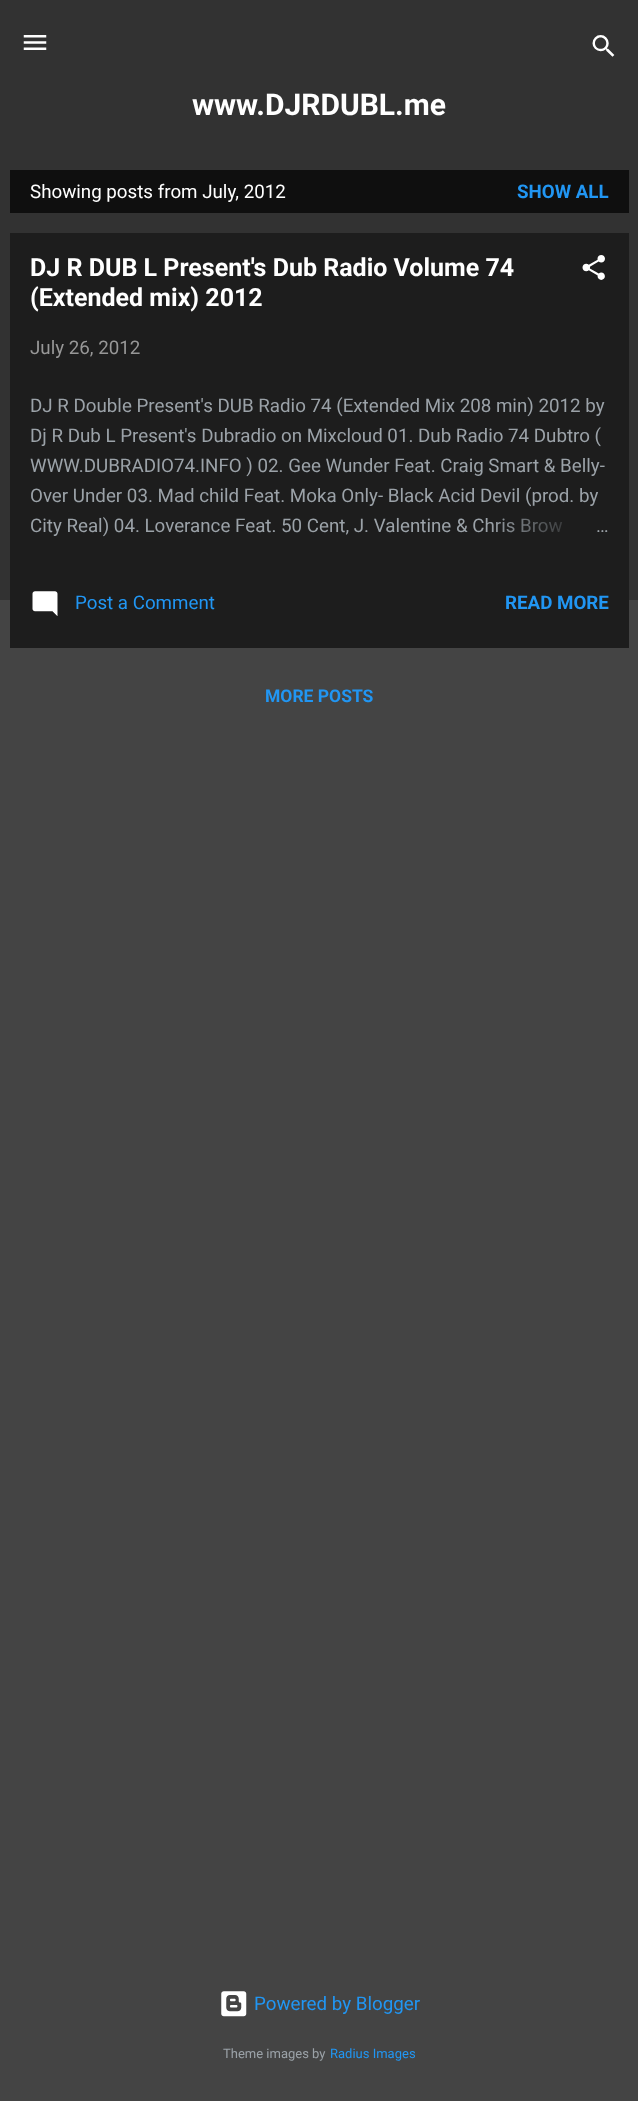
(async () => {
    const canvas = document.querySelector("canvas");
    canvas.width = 638;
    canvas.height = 2101;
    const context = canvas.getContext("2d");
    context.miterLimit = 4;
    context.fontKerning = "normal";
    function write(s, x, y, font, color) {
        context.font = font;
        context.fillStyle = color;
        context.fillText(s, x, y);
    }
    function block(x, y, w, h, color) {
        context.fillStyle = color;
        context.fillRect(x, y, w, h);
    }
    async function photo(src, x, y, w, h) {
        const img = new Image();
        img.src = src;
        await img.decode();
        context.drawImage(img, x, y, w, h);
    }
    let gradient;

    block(0, 0, 638, 2101, "rgb(68, 68, 68)");
    block(0, 0, 638, 600, "rgb(50, 50, 50)");
    await photo("media/1.png", 23, 35, 24, 15);
    await photo("media/2.png", 592, 35, 23, 22);
    write("www.DJRDUBL.me", 192, 115, "bold 30px Roboto", "rgb(255, 255, 255)");
    block(10, 170, 619, 43, "rgb(15, 15, 15)");
    write("Showing posts from July, 2012", 30, 198, "18.75px Roboto", "rgb(255, 255, 255)");
    write("SHOW ALL", 517, 198, "bold 18.75px Roboto", "rgb(33, 150, 243)");
    block(10, 233, 619, 415, "rgb(29, 29, 29)");
    write("DJ R DUB L Present's Dub Radio Volume 74", 30, 276, "bold 25px Roboto", "rgb(255, 255, 255)");
    write("(Extended mix) 2012", 30, 306, "bold 25px Roboto", "rgb(255, 255, 255)");
    await photo("media/3.png", 582, 255, 23, 25);
    write("July 26, 2012", 30, 354, "18.75px Roboto", "rgb(151, 151, 151)");
    write("DJ R Double Present's DUB Radio 74 (Extended Mix 208 min) 2012 by", 30, 412, "18.75px Roboto", "rgb(155, 162, 168)");
    write("Dj R Dub L Present's Dubradio on Mixcloud 01. Dub Radio 74 Dubtro (", 30, 442, "18.75px Roboto", "rgb(155, 162, 168)");
    write("WWW.DUBRADIO74.INFO ) 02. Gee Wunder Feat. Craig Smart & Belly-", 30, 472, "18.75px Roboto", "rgb(155, 162, 168)");
    write("Over Under 03. Mad child Feat. Moka Only- Black Acid Devil (prod. by", 30, 502, "18.75px Roboto", "rgb(155, 162, 168)");
    write("City Real) 04. Loverance Feat. 50 Cent, J. Valentine & Chris Brow", 30, 532, "18.75px Roboto", "rgb(155, 162, 168)");
    gradient = context.createLinearGradient(609, 526, 489, 526);
    gradient.addColorStop(0, "rgb(29, 29, 29)");
    gradient.addColorStop(0.2, "rgb(29, 29, 29)");
    gradient.addColorStop(1, "rgba(29, 29, 29, 0)");
    context.fillStyle = gradient;
    context.fillRect(491, 518, 72, 15);
    write("…", 596, 532, "18.75px Roboto", "rgb(155, 162, 168)");
    await photo("media/4.png", 32, 591, 26, 25);
    write("Post a Comment", 75, 609, "18.75px Roboto", "rgb(33, 150, 243)");
    write("READ MORE", 505, 609, "bold 18.75px Roboto", "rgb(33, 150, 243)");
    write("MORE POSTS", 265, 702, "bold 17.5px Roboto", "rgb(33, 150, 243)");
    await photo("media/5.png", 221, 1991, 26, 26);
    write("Powered by Blogger", 254, 2010, "18.75px Roboto", "rgb(33, 150, 243)");
    write("Theme images by", 223, 2058, "13px Roboto", "rgb(155, 162, 168)");
    write("Radius Images", 330, 2058, "13px Roboto", "rgb(33, 150, 243)");
})();
